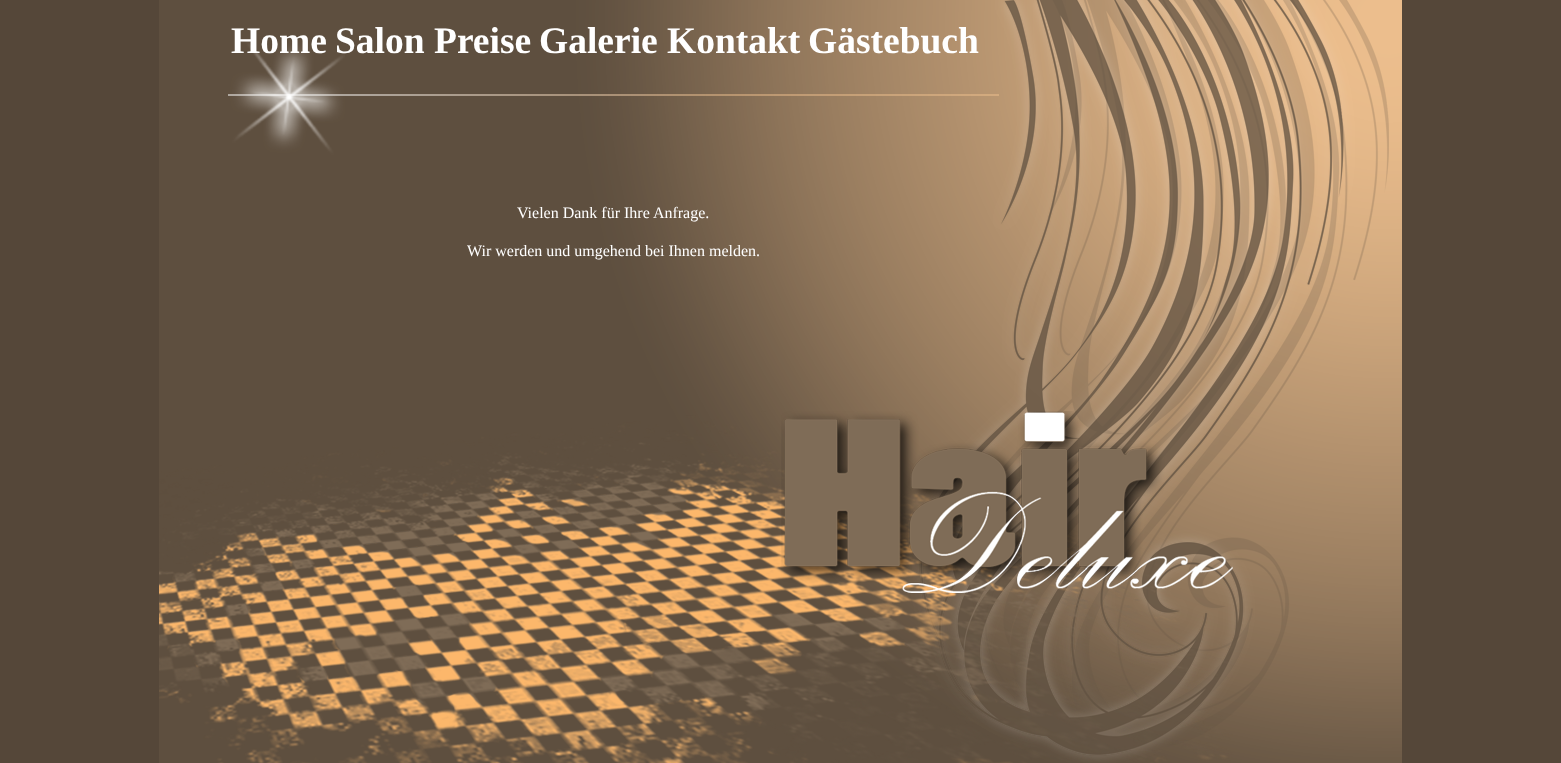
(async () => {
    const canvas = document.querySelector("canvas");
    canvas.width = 1561;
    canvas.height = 763;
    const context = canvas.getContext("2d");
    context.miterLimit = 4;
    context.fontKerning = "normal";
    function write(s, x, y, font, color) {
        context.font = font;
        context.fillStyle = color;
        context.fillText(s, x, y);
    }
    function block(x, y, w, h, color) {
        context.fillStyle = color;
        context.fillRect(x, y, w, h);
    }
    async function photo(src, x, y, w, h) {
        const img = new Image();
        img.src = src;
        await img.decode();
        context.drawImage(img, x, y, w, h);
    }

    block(0, 0, 1561, 763, "rgb(85, 71, 57)");
    await photo("media/1.png", 159, 0, 1243, 763);
    write("Home", 231, 53, "bold 37.5px Liberation Serif", "rgb(255, 255, 255)");
    write("Salon", 335, 53, "bold 37.5px Liberation Serif", "rgb(255, 255, 255)");
    write("Preise", 434, 53, "bold 37.5px Liberation Serif", "rgb(255, 255, 255)");
    write("Galerie", 539, 53, "bold 37.5px Liberation Serif", "rgb(255, 255, 255)");
    write("Kontakt", 667, 53, "bold 37.5px Liberation Serif", "rgb(255, 255, 255)");
    write("Gästebuch", 808, 53, "bold 37.5px Liberation Serif", "rgb(255, 255, 255)");
    write("Vielen Dank für Ihre Anfrage.", 517, 218, "16px Liberation Serif", "rgb(255, 255, 255)");
    write("Wir werden und umgehend bei Ihnen melden.", 467, 256, "16px Liberation Serif", "rgb(255, 255, 255)");
    await photo("media/2.png", 159, 411, 1074, 352);
})();
